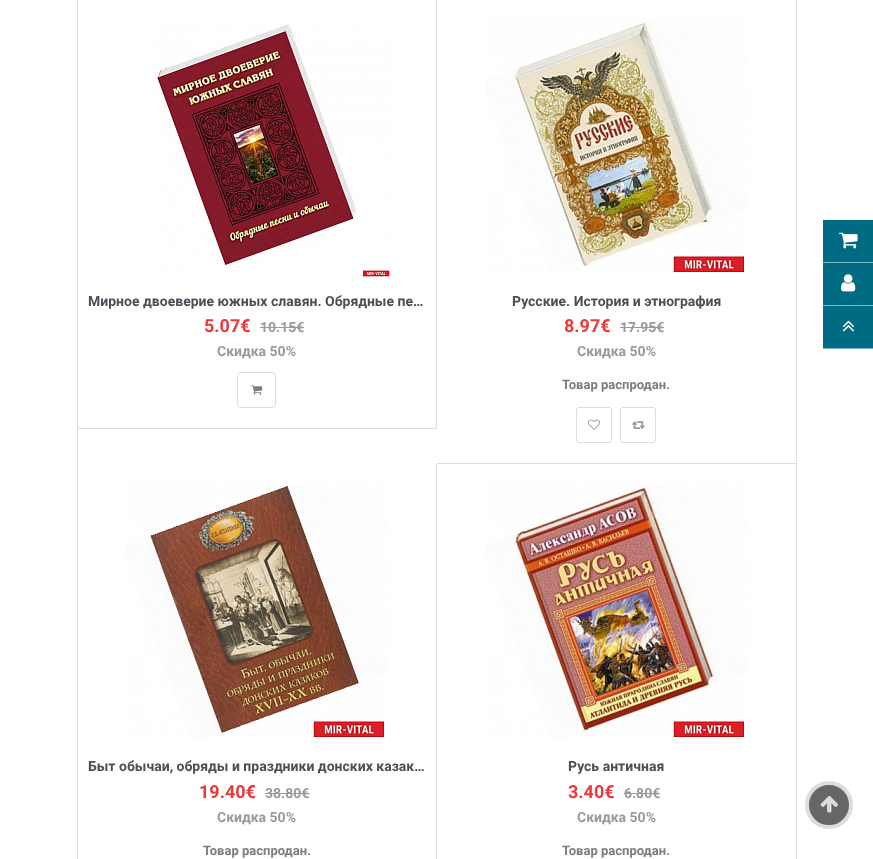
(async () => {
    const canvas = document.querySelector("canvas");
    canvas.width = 873;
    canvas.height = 859;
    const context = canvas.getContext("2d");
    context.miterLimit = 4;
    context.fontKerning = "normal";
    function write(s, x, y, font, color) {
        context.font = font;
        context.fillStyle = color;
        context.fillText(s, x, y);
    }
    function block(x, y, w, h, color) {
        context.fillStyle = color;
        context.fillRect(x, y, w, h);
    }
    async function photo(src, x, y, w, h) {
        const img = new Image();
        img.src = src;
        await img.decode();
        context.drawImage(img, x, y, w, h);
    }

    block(0, 0, 873, 859, "rgb(255, 255, 255)");
    block(77, 0, 1, 859, "rgb(221, 221, 221)");
    block(436, 0, 1, 429, "rgb(221, 221, 221)");
    block(78, 428, 359, 1, "rgb(221, 221, 221)");
    await photo("media/1.png", 154, 24, 238, 255);
    write("Мирное двоеверие южных славян. Обрядные пе…", 88, 306, "bold 14px Roboto", "rgb(73, 80, 87)");
    write("5.07€", 204, 332, "bold 18px Roboto", "rgb(234, 58, 60)");
    write("10.15€", 260, 332, "bold 14px Roboto", "rgb(154, 154, 154)");
    block(260, 327, 44, 1, "rgb(154, 154, 154)");
    write("Скидка 50%", 217, 356, "bold 14px Roboto", "rgb(154, 154, 154)");
    context.beginPath();
    context.roundRect(237.5, 372.5, 38, 35, 3.5);
    context.strokeStyle = "rgb(221, 221, 221)";
    context.stroke();
    await photo("media/2.png", 251, 385, 12, 10);
    block(796, 0, 1, 859, "rgb(221, 221, 221)");
    block(437, 463, 360, 1, "rgb(221, 221, 221)");
    await photo("media/3.png", 486, 17, 261, 256);
    write("Русские. История и этнография", 512, 306, "bold 14px Roboto", "rgb(73, 80, 87)");
    write("8.97€", 564, 332, "bold 18px Roboto", "rgb(234, 58, 60)");
    write("17.95€", 620, 332, "bold 14px Roboto", "rgb(154, 154, 154)");
    block(620, 327, 44, 1, "rgb(154, 154, 154)");
    write("Скидка 50%", 577, 356, "bold 14px Roboto", "rgb(154, 154, 154)");
    write("Товар распродан.", 562, 389, "bold 13px Roboto", "rgb(125, 125, 125)");
    context.beginPath();
    context.roundRect(576.5, 407.5, 35, 35, 2.5);
    context.stroke();
    await photo("media/4.png", 588, 419, 12, 11);
    context.beginPath();
    context.roundRect(620.5, 407.5, 35, 35, 2.5);
    context.stroke();
    await photo("media/5.png", 632, 421, 13, 8);
    block(436, 464, 1, 395, "rgb(221, 221, 221)");
    await photo("media/6.png", 126, 482, 261, 256);
    write("Быт обычаи, обряды и праздники донских казак…", 88, 771, "bold 14px Roboto", "rgb(73, 80, 87)");
    write("19.40€", 199, 798, "bold 18px Roboto", "rgb(234, 58, 60)");
    write("38.80€", 265, 798, "bold 14px Roboto", "rgb(154, 154, 154)");
    block(265, 793, 45, 1, "rgb(154, 154, 154)");
    write("Скидка 50%", 217, 822, "bold 14px Roboto", "rgb(154, 154, 154)");
    write("Товар распродан.", 203, 855, "bold 13px Roboto", "rgb(125, 125, 125)");
    await photo("media/7.png", 486, 482, 261, 256);
    write("Русь античная", 568, 771, "bold 14px Roboto", "rgb(73, 80, 87)");
    write("3.40€", 568, 798, "bold 18px Roboto", "rgb(234, 58, 60)");
    write("6.80€", 624, 798, "bold 14px Roboto", "rgb(154, 154, 154)");
    block(624, 793, 36, 1, "rgb(154, 154, 154)");
    write("Скидка 50%", 577, 822, "bold 14px Roboto", "rgb(154, 154, 154)");
    write("Товар распродан.", 562, 855, "bold 13px Roboto", "rgb(125, 125, 125)");
    block(823, 220, 50, 42, "rgb(0, 108, 131)");
    block(823, 262, 50, 1, "rgb(128, 182, 193)");
    await photo("media/8.png", 839, 232, 19, 17);
    block(823, 263, 50, 42, "rgb(0, 108, 131)");
    block(823, 305, 50, 1, "rgb(128, 182, 193)");
    await photo("media/9.png", 841, 274, 15, 18);
    block(823, 306, 50, 42, "rgb(0, 108, 131)");
    block(823, 348, 50, 1, "rgb(128, 182, 193)");
    await photo("media/10.png", 842, 320, 12, 12);
    context.fillStyle = "rgb(102, 102, 102)";
    context.beginPath();
    context.arc(829, 805, 22, 0, Math.PI * 2);
    context.fill();
    context.lineWidth = 4;
    context.stroke();
    await photo("media/11.png", 820, 796, 18, 17);
})();
